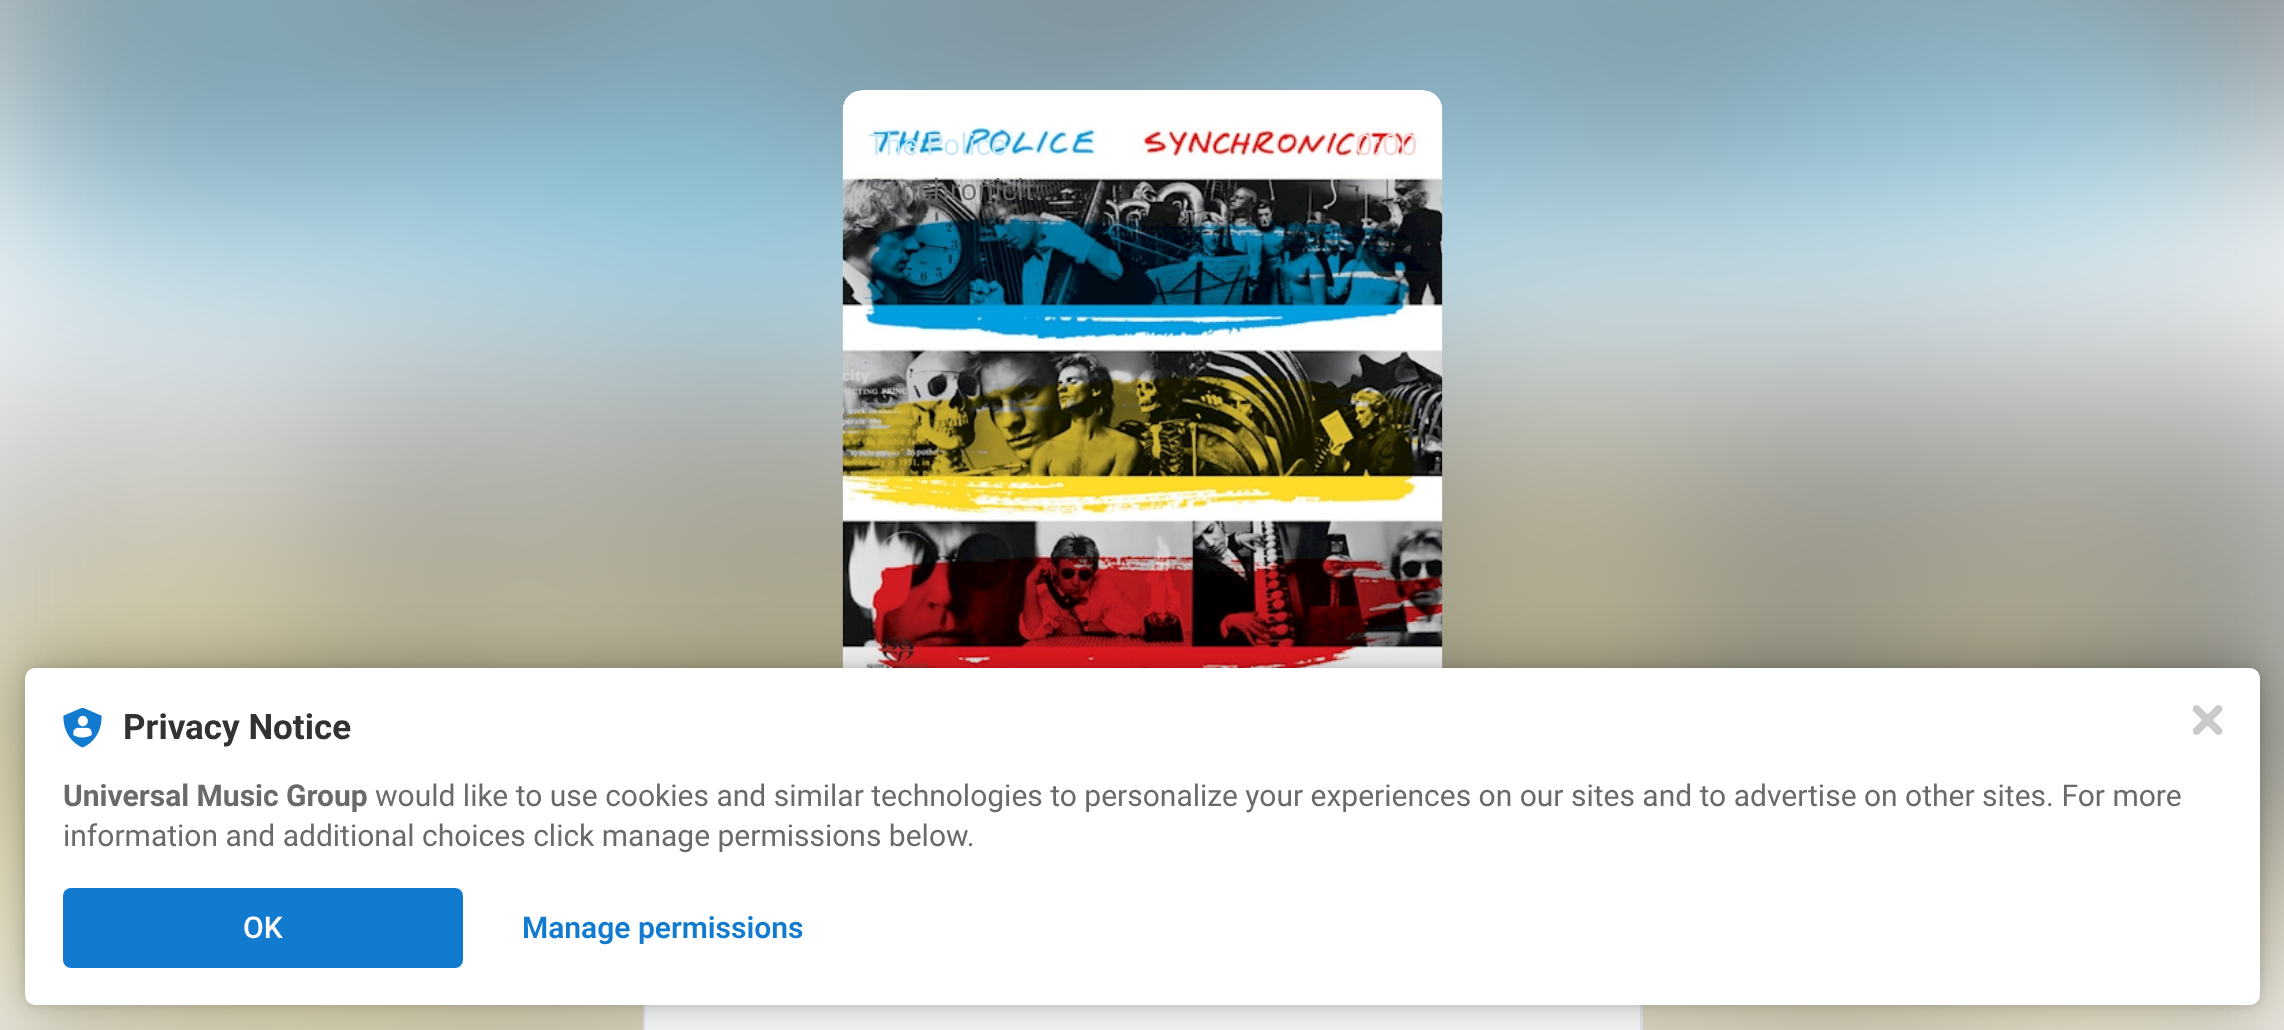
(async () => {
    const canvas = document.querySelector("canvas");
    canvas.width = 2284;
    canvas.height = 1030;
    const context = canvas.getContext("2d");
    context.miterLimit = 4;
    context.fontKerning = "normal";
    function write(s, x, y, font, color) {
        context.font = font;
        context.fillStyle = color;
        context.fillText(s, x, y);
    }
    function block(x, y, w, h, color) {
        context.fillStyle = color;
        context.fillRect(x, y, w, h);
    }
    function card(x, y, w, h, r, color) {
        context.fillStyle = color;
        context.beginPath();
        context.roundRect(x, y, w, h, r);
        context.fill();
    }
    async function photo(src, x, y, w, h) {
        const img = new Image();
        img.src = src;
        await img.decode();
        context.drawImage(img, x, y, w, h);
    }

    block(0, 0, 2284, 1030, "rgb(255, 255, 255)");
    await photo("media/1.png", 0, 0, 2284, 1030);
    await photo("media/2.png", 842, 90, 601, 578);
    write("The Police", 868, 155, "30px IBM Plex Sans", "rgb(200, 231, 244)");
    write("Synchronicit…", 868, 200, "30px IBM Plex Sans", "rgb(106, 106, 108)");
    write("0:00", 1355, 155, "30px IBM Plex Sans", "rgb(245, 214, 213)");
    context.fillStyle = "rgb(255, 255, 255)";
    context.beginPath();
    context.roundRect(644.5, 991.5, 997, 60, 18.5);
    context.fill();
    context.strokeStyle = "rgb(230, 234, 242)";
    context.lineWidth = 3;
    context.stroke();
    card(645, 993, 995, 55, 18, "rgb(255, 255, 255)");
    context.fillStyle = "rgba(0, 0, 0, 0.12)";
    context.filter = "blur(5px)";
    context.beginPath();
    context.roundRect(25, 668, 2235, 337, 10);
    context.fill();
    context.filter = "none";
    context.fillStyle = "rgba(0, 0, 0, 0.3)";
    context.filter = "blur(30px)";
    context.beginPath();
    context.roundRect(25, 668, 2235, 337, 10);
    context.fill();
    context.filter = "none";
    card(25, 668, 2235, 337, 10, "rgb(255, 255, 255)");
    await photo("media/3.png", 63, 708, 39, 40);
    write("Privacy Notice", 123, 739, "bold 35px Roboto", "rgb(50, 50, 50)");
    write("Universal Music Group", 63, 806, "bold 30px Roboto", "rgb(106, 106, 108)");
    write("would like to use cookies and similar technologies to personalize your experiences on our sites and to advertise on other sites. For more", 375, 806, "30px Roboto", "rgb(106, 106, 108)");
    write("information and additional choices click manage permissions below.", 63, 846, "30px Roboto", "rgb(106, 106, 108)");
    card(63, 888, 400, 80, 8, "rgb(19, 123, 207)");
    write("OK", 243, 938, "500 30px Roboto", "rgb(255, 255, 255)");
    write("Manage permissions", 522, 938, "600 30px Roboto", "rgb(19, 123, 207)");
    await photo("media/4.png", 2193, 705, 30, 30);
})();
